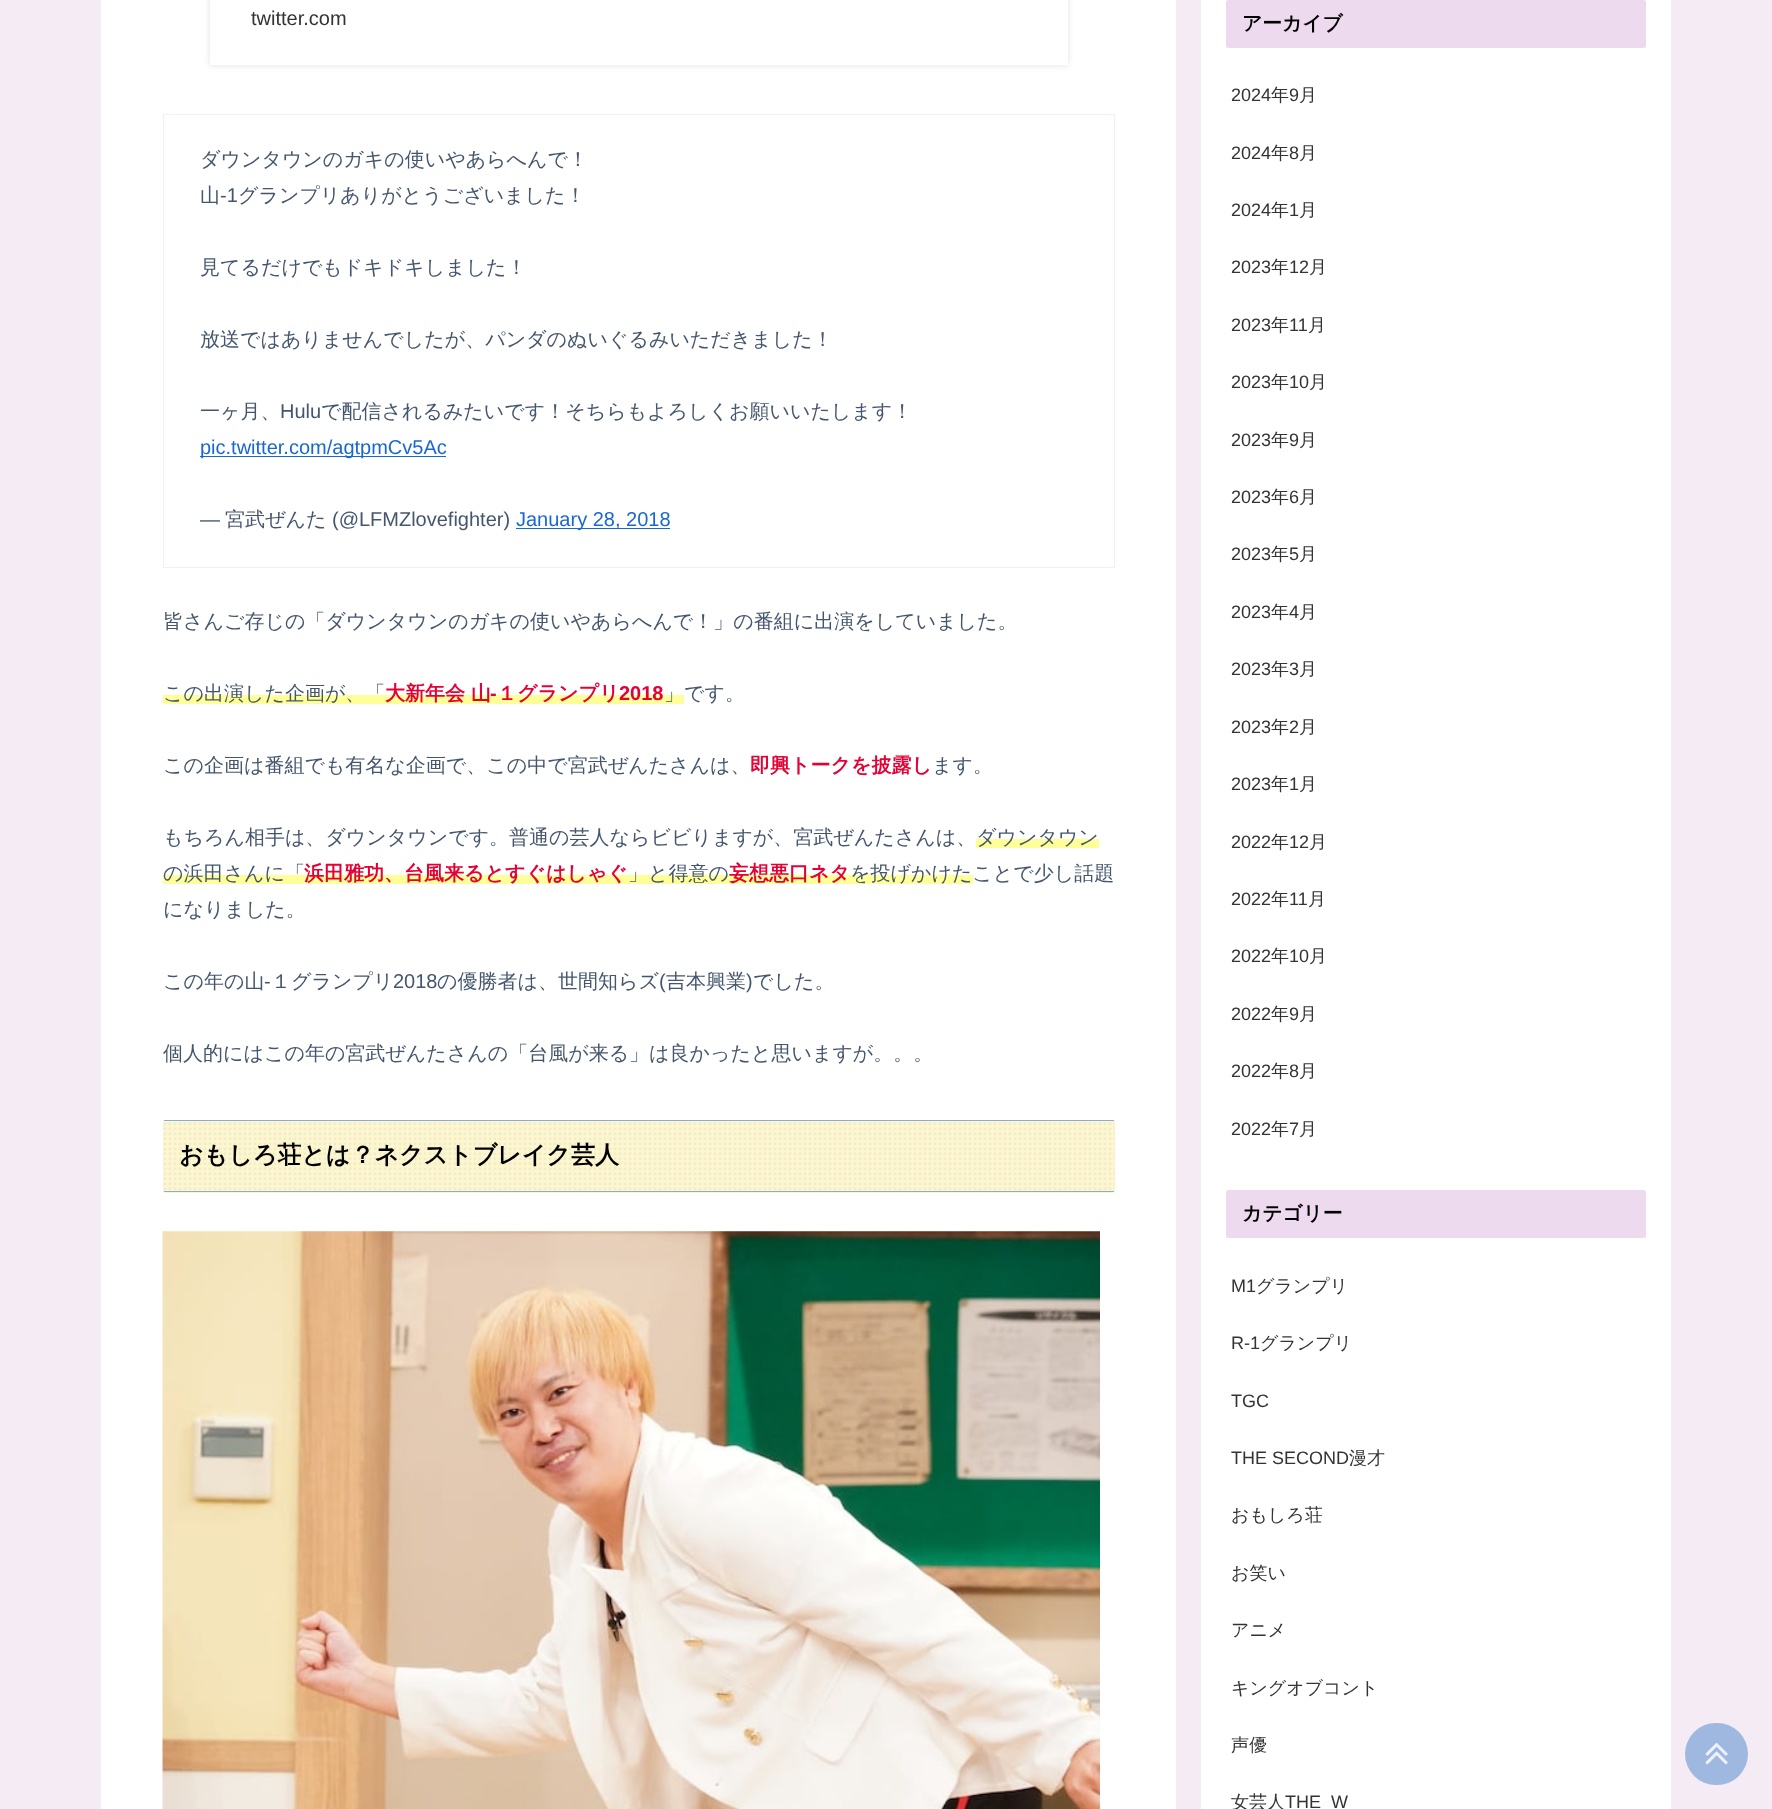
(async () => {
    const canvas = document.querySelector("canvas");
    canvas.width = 1772;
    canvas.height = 1809;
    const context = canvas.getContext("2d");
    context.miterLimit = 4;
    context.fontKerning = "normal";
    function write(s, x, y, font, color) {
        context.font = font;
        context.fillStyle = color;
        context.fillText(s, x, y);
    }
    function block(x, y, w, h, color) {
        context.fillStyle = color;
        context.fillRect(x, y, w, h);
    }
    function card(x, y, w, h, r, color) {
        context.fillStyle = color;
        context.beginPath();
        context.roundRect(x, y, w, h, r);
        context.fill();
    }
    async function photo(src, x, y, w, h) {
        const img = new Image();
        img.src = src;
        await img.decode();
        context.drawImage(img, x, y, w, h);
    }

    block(0, 0, 1772, 1809, "rgb(244, 235, 244)");
    block(101, 0, 1075, 1809, "rgb(255, 255, 255)");
    context.save();
    context.beginPath();
    context.moveTo(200, 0);
    context.lineTo(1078, 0);
    context.lineTo(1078, 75);
    context.lineTo(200, 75);
    context.closePath();
    context.moveTo(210, -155);
    context.lineTo(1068, -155);
    context.lineTo(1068, 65);
    context.lineTo(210, 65);
    context.closePath();
    context.clip("evenodd");
    context.fillStyle = "rgba(100, 100, 100, 0.2)";
    context.filter = "blur(3px)";
    context.beginPath();
    context.rect(210, -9, 858, 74);
    context.fill();
    context.filter = "none";
    context.restore();
    write("twitter.com", 251, 25, "20px Liberation Sans", "rgb(51, 51, 51)");
    context.strokeStyle = "rgb(247, 237, 247)";
    context.strokeRect(163.5, 114.5, 951, 453);
    write("ダウンタウンのガキの使いやあらへんで！", 200, 166, "500 20px WenQuanYi Zen Hei", "rgb(68, 86, 109)");
    write("山", 200, 202, "500 20px WenQuanYi Zen Hei", "rgb(68, 86, 109)");
    write("-1", 220, 202, "20px Liberation Sans", "rgb(68, 86, 109)");
    write("グランプリありがとうございました！", 238, 202, "500 20px WenQuanYi Zen Hei", "rgb(68, 86, 109)");
    write("見てるだけでもドキドキしました！", 200, 274, "500 20px WenQuanYi Zen Hei", "rgb(68, 86, 109)");
    write("放送ではありませんでしたが、パンダのぬいぐるみいただきました！", 200, 346, "500 20px WenQuanYi Zen Hei", "rgb(68, 86, 109)");
    write("一ヶ月、", 200, 418, "500 20px WenQuanYi Zen Hei", "rgb(68, 86, 109)");
    write("Hulu", 280, 418, "20px Liberation Sans", "rgb(68, 86, 109)");
    write("で配信されるみたいです！そちらもよろしくお願いいたします！", 321, 418, "500 20px WenQuanYi Zen Hei", "rgb(68, 86, 109)");
    block(200, 456, 246, 1, "rgb(25, 103, 210)");
    write("pic.twitter.com/agtpmCv5Ac", 200, 454, "20px Liberation Sans", "rgb(25, 103, 210)");
    write("—", 200, 526, "20px Liberation Sans", "rgb(68, 86, 109)");
    write("宮武ぜんた", 225, 526, "500 20px WenQuanYi Zen Hei", "rgb(68, 86, 109)");
    write("(@LFMZlovefighter)", 332, 526, "20px Liberation Sans", "rgb(68, 86, 109)");
    block(516, 528, 154, 1, "rgb(25, 103, 210)");
    write("January 28, 2018", 516, 526, "20px Liberation Sans", "rgb(25, 103, 210)");
    write("皆さんご存じの「ダウンタウンのガキの使いやあらへんで！」の番組に出演をしていました。", 163, 628, "500 20px WenQuanYi Zen Hei", "rgb(68, 86, 109)");
    block(163, 695, 521, 9, "rgb(255, 255, 153)");
    write("この出演した企画が、「", 163, 700, "500 20px WenQuanYi Zen Hei", "rgb(68, 86, 109)");
    write("大新年会 山", 385, 700, "bold 20px WenQuanYi Zen Hei", "rgb(230, 0, 51)");
    write("-", 490, 700, "bold 20px Liberation Sans", "rgb(230, 0, 51)");
    write("１グランプリ", 497, 700, "bold 20px WenQuanYi Zen Hei", "rgb(230, 0, 51)");
    write("2018", 619, 700, "bold 20px Liberation Sans", "rgb(230, 0, 51)");
    write("」です。", 664, 700, "500 20px WenQuanYi Zen Hei", "rgb(68, 86, 109)");
    write("この企画は番組でも有名な企画で、この中で宮武ぜんたさんは、", 163, 772, "500 20px WenQuanYi Zen Hei", "rgb(68, 86, 109)");
    write("即興トークを披露し", 750, 772, "bold 20px WenQuanYi Zen Hei", "rgb(230, 0, 51)");
    write("ます。", 932, 772, "500 20px WenQuanYi Zen Hei", "rgb(68, 86, 109)");
    write("もちろん相手は、ダウンタウンです。普通の芸人ならビビりますが、宮武ぜんたさんは、", 163, 844, "500 20px WenQuanYi Zen Hei", "rgb(68, 86, 109)");
    block(976, 839, 123, 9, "rgb(255, 255, 153)");
    write("ダウンタウン", 976, 844, "500 20px WenQuanYi Zen Hei", "rgb(68, 86, 109)");
    block(163, 875, 810, 9, "rgb(255, 255, 153)");
    write("の浜田さんに「", 163, 880, "500 20px WenQuanYi Zen Hei", "rgb(68, 86, 109)");
    write("浜田雅功、台風来るとすぐはしゃぐ", 304, 880, "bold 20px WenQuanYi Zen Hei", "rgb(230, 0, 51)");
    write("」と得意の", 628, 880, "500 20px WenQuanYi Zen Hei", "rgb(68, 86, 109)");
    write("妄想悪口ネタ", 729, 880, "bold 20px WenQuanYi Zen Hei", "rgb(230, 0, 51)");
    write("を投げかけたことで少し話題", 850, 880, "500 20px WenQuanYi Zen Hei", "rgb(68, 86, 109)");
    write("になりました。", 163, 916, "500 20px WenQuanYi Zen Hei", "rgb(68, 86, 109)");
    write("この年の山", 163, 988, "500 20px WenQuanYi Zen Hei", "rgb(68, 86, 109)");
    write("-", 264, 988, "20px Liberation Sans", "rgb(68, 86, 109)");
    write("１グランプリ", 271, 988, "500 20px WenQuanYi Zen Hei", "rgb(68, 86, 109)");
    write("2018", 393, 988, "20px Liberation Sans", "rgb(68, 86, 109)");
    write("の優勝者は、世間知らズ", 437, 988, "500 20px WenQuanYi Zen Hei", "rgb(68, 86, 109)");
    write("(", 659, 988, "20px Liberation Sans", "rgb(68, 86, 109)");
    write("吉本興業", 666, 988, "500 20px WenQuanYi Zen Hei", "rgb(68, 86, 109)");
    write(")", 746, 988, "20px Liberation Sans", "rgb(68, 86, 109)");
    write("でした。", 753, 988, "500 20px WenQuanYi Zen Hei", "rgb(68, 86, 109)");
    write("個人的にはこの年の宮武ぜんたさんの「台風が来る」は良かったと思いますが。。。", 163, 1060, "500 20px WenQuanYi Zen Hei", "rgb(68, 86, 109)");
    card(163, 1120, 952, 73, 2.5, "rgb(255, 247, 204)");
    await photo("media/1.png", 163, 1122, 952, 68);
    block(164, 1120, 950, 1, "rgb(136, 171, 218)");
    block(164, 1191, 950, 1, "rgb(136, 171, 218)");
    write("おもしろ荘とは？ネクストブレイク芸人", 179, 1163, "bold 24px WenQuanYi Zen Hei", "rgb(0, 0, 0)");
    await photo("media/2.png", 162, 1231, 938, 578);
    block(1201, 0, 470, 1809, "rgb(255, 255, 255)");
    card(1226, 0, 420, 48, 2.5, "rgb(238, 218, 239)");
    write("アーカイブ", 1242, 30, "bold 19.75px WenQuanYi Zen Hei", "rgb(0, 0, 0)");
    write("2024", 1231, 101, "18px Liberation Sans", "rgb(51, 51, 51)");
    write("年", 1271, 101, "500 18px WenQuanYi Zen Hei", "rgb(51, 51, 51)");
    write("9", 1289, 101, "18px Liberation Sans", "rgb(51, 51, 51)");
    write("月", 1299, 101, "500 18px WenQuanYi Zen Hei", "rgb(51, 51, 51)");
    write("2024", 1231, 159, "18px Liberation Sans", "rgb(51, 51, 51)");
    write("年", 1271, 159, "500 18px WenQuanYi Zen Hei", "rgb(51, 51, 51)");
    write("8", 1289, 159, "18px Liberation Sans", "rgb(51, 51, 51)");
    write("月", 1299, 159, "500 18px WenQuanYi Zen Hei", "rgb(51, 51, 51)");
    write("2024", 1231, 216, "18px Liberation Sans", "rgb(51, 51, 51)");
    write("年", 1271, 216, "500 18px WenQuanYi Zen Hei", "rgb(51, 51, 51)");
    write("1", 1289, 216, "18px Liberation Sans", "rgb(51, 51, 51)");
    write("月", 1299, 216, "500 18px WenQuanYi Zen Hei", "rgb(51, 51, 51)");
    write("2023", 1231, 273, "18px Liberation Sans", "rgb(51, 51, 51)");
    write("年", 1271, 273, "500 18px WenQuanYi Zen Hei", "rgb(51, 51, 51)");
    write("12", 1289, 273, "18px Liberation Sans", "rgb(51, 51, 51)");
    write("月", 1309, 273, "500 18px WenQuanYi Zen Hei", "rgb(51, 51, 51)");
    write("2023", 1231, 331, "18px Liberation Sans", "rgb(51, 51, 51)");
    write("年", 1271, 331, "500 18px WenQuanYi Zen Hei", "rgb(51, 51, 51)");
    write("11", 1289, 331, "18px Liberation Sans", "rgb(51, 51, 51)");
    write("月", 1308, 331, "500 18px WenQuanYi Zen Hei", "rgb(51, 51, 51)");
    write("2023", 1231, 388, "18px Liberation Sans", "rgb(51, 51, 51)");
    write("年", 1271, 388, "500 18px WenQuanYi Zen Hei", "rgb(51, 51, 51)");
    write("10", 1289, 388, "18px Liberation Sans", "rgb(51, 51, 51)");
    write("月", 1309, 388, "500 18px WenQuanYi Zen Hei", "rgb(51, 51, 51)");
    write("2023", 1231, 446, "18px Liberation Sans", "rgb(51, 51, 51)");
    write("年", 1271, 446, "500 18px WenQuanYi Zen Hei", "rgb(51, 51, 51)");
    write("9", 1289, 446, "18px Liberation Sans", "rgb(51, 51, 51)");
    write("月", 1299, 446, "500 18px WenQuanYi Zen Hei", "rgb(51, 51, 51)");
    write("2023", 1231, 503, "18px Liberation Sans", "rgb(51, 51, 51)");
    write("年", 1271, 503, "500 18px WenQuanYi Zen Hei", "rgb(51, 51, 51)");
    write("6", 1289, 503, "18px Liberation Sans", "rgb(51, 51, 51)");
    write("月", 1299, 503, "500 18px WenQuanYi Zen Hei", "rgb(51, 51, 51)");
    write("2023", 1231, 560, "18px Liberation Sans", "rgb(51, 51, 51)");
    write("年", 1271, 560, "500 18px WenQuanYi Zen Hei", "rgb(51, 51, 51)");
    write("5", 1289, 560, "18px Liberation Sans", "rgb(51, 51, 51)");
    write("月", 1299, 560, "500 18px WenQuanYi Zen Hei", "rgb(51, 51, 51)");
    write("2023", 1231, 618, "18px Liberation Sans", "rgb(51, 51, 51)");
    write("年", 1271, 618, "500 18px WenQuanYi Zen Hei", "rgb(51, 51, 51)");
    write("4", 1289, 618, "18px Liberation Sans", "rgb(51, 51, 51)");
    write("月", 1299, 618, "500 18px WenQuanYi Zen Hei", "rgb(51, 51, 51)");
    write("2023", 1231, 675, "18px Liberation Sans", "rgb(51, 51, 51)");
    write("年", 1271, 675, "500 18px WenQuanYi Zen Hei", "rgb(51, 51, 51)");
    write("3", 1289, 675, "18px Liberation Sans", "rgb(51, 51, 51)");
    write("月", 1299, 675, "500 18px WenQuanYi Zen Hei", "rgb(51, 51, 51)");
    write("2023", 1231, 733, "18px Liberation Sans", "rgb(51, 51, 51)");
    write("年", 1271, 733, "500 18px WenQuanYi Zen Hei", "rgb(51, 51, 51)");
    write("2", 1289, 733, "18px Liberation Sans", "rgb(51, 51, 51)");
    write("月", 1299, 733, "500 18px WenQuanYi Zen Hei", "rgb(51, 51, 51)");
    write("2023", 1231, 790, "18px Liberation Sans", "rgb(51, 51, 51)");
    write("年", 1271, 790, "500 18px WenQuanYi Zen Hei", "rgb(51, 51, 51)");
    write("1", 1289, 790, "18px Liberation Sans", "rgb(51, 51, 51)");
    write("月", 1299, 790, "500 18px WenQuanYi Zen Hei", "rgb(51, 51, 51)");
    write("2022", 1231, 848, "18px Liberation Sans", "rgb(51, 51, 51)");
    write("年", 1271, 848, "500 18px WenQuanYi Zen Hei", "rgb(51, 51, 51)");
    write("12", 1289, 848, "18px Liberation Sans", "rgb(51, 51, 51)");
    write("月", 1309, 848, "500 18px WenQuanYi Zen Hei", "rgb(51, 51, 51)");
    write("2022", 1231, 905, "18px Liberation Sans", "rgb(51, 51, 51)");
    write("年", 1271, 905, "500 18px WenQuanYi Zen Hei", "rgb(51, 51, 51)");
    write("11", 1289, 905, "18px Liberation Sans", "rgb(51, 51, 51)");
    write("月", 1308, 905, "500 18px WenQuanYi Zen Hei", "rgb(51, 51, 51)");
    write("2022", 1231, 962, "18px Liberation Sans", "rgb(51, 51, 51)");
    write("年", 1271, 962, "500 18px WenQuanYi Zen Hei", "rgb(51, 51, 51)");
    write("10", 1289, 962, "18px Liberation Sans", "rgb(51, 51, 51)");
    write("月", 1309, 962, "500 18px WenQuanYi Zen Hei", "rgb(51, 51, 51)");
    write("2022", 1231, 1020, "18px Liberation Sans", "rgb(51, 51, 51)");
    write("年", 1271, 1020, "500 18px WenQuanYi Zen Hei", "rgb(51, 51, 51)");
    write("9", 1289, 1020, "18px Liberation Sans", "rgb(51, 51, 51)");
    write("月", 1299, 1020, "500 18px WenQuanYi Zen Hei", "rgb(51, 51, 51)");
    write("2022", 1231, 1077, "18px Liberation Sans", "rgb(51, 51, 51)");
    write("年", 1271, 1077, "500 18px WenQuanYi Zen Hei", "rgb(51, 51, 51)");
    write("8", 1289, 1077, "18px Liberation Sans", "rgb(51, 51, 51)");
    write("月", 1299, 1077, "500 18px WenQuanYi Zen Hei", "rgb(51, 51, 51)");
    write("2022", 1231, 1135, "18px Liberation Sans", "rgb(51, 51, 51)");
    write("年", 1271, 1135, "500 18px WenQuanYi Zen Hei", "rgb(51, 51, 51)");
    write("7", 1289, 1135, "18px Liberation Sans", "rgb(51, 51, 51)");
    write("月", 1299, 1135, "500 18px WenQuanYi Zen Hei", "rgb(51, 51, 51)");
    card(1226, 1190, 420, 48, 2.5, "rgb(238, 218, 239)");
    write("カテゴリー", 1242, 1220, "bold 19.75px WenQuanYi Zen Hei", "rgb(0, 0, 0)");
    write("M1", 1231, 1292, "18px Liberation Sans", "rgb(51, 51, 51)");
    write("グランプリ", 1256, 1292, "500 18px WenQuanYi Zen Hei", "rgb(51, 51, 51)");
    write("R-1", 1231, 1349, "18px Liberation Sans", "rgb(51, 51, 51)");
    write("グランプリ", 1260, 1349, "500 18px WenQuanYi Zen Hei", "rgb(51, 51, 51)");
    write("TGC", 1231, 1407, "18px Liberation Sans", "rgb(51, 51, 51)");
    write("THE SECOND", 1231, 1464, "18px Liberation Sans", "rgb(51, 51, 51)");
    write("漫才", 1349, 1464, "500 18px WenQuanYi Zen Hei", "rgb(51, 51, 51)");
    write("おもしろ荘", 1231, 1521, "500 18px WenQuanYi Zen Hei", "rgb(51, 51, 51)");
    write("お笑い", 1231, 1579, "500 18px WenQuanYi Zen Hei", "rgb(51, 51, 51)");
    write("アニメ", 1231, 1636, "500 18px WenQuanYi Zen Hei", "rgb(51, 51, 51)");
    write("キングオブコント", 1231, 1694, "500 18px WenQuanYi Zen Hei", "rgb(51, 51, 51)");
    write("声優", 1231, 1751, "500 18px WenQuanYi Zen Hei", "rgb(51, 51, 51)");
    write("女芸人", 1231, 1808, "500 18px WenQuanYi Zen Hei", "rgb(51, 51, 51)");
    write("THE_W", 1285, 1808, "18px Liberation Sans", "rgb(51, 51, 51)");
    card(1685, 1723, 63, 62, 31, "rgb(158, 184, 223)");
    await photo("media/3.png", 1705, 1742, 23, 23);
})();
